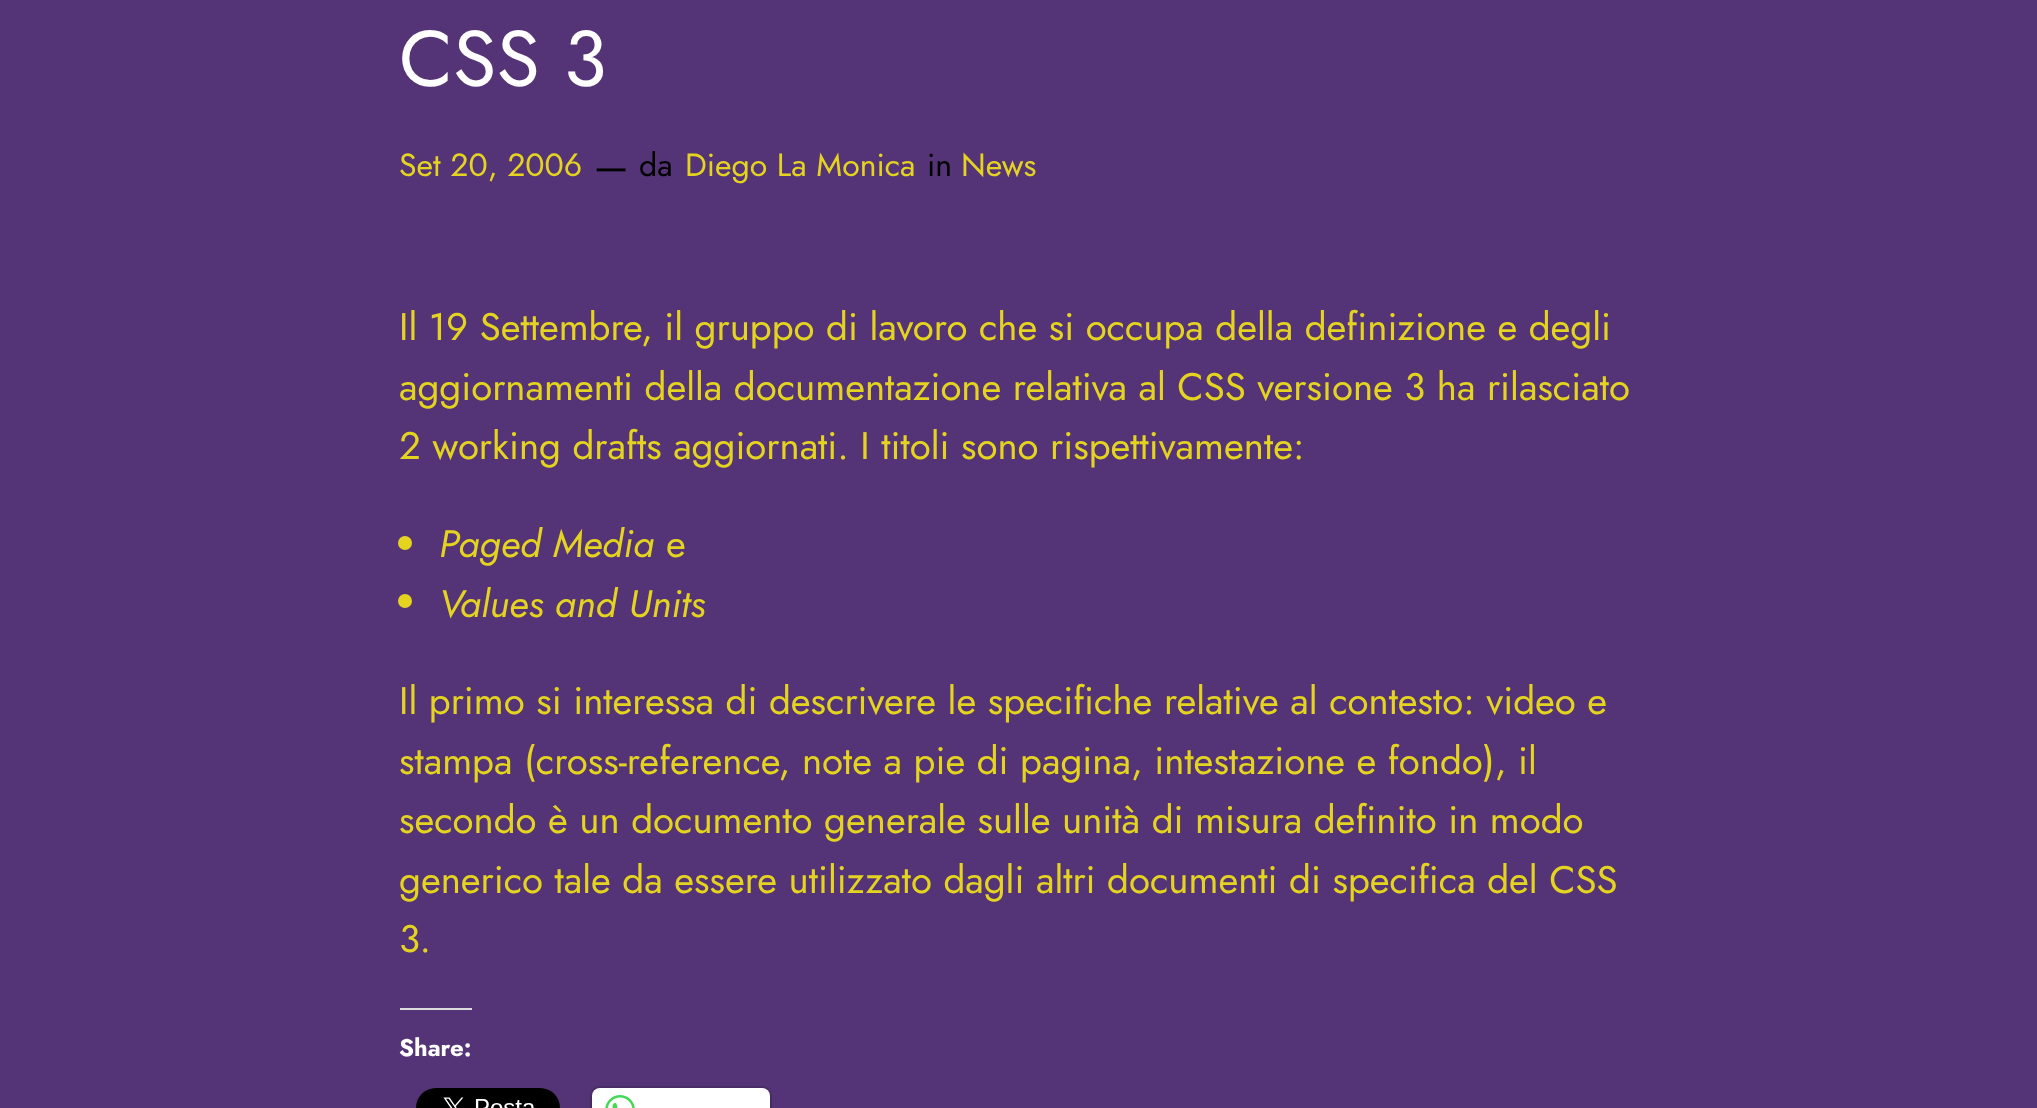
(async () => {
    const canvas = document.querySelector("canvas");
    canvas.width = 2037;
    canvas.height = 1108;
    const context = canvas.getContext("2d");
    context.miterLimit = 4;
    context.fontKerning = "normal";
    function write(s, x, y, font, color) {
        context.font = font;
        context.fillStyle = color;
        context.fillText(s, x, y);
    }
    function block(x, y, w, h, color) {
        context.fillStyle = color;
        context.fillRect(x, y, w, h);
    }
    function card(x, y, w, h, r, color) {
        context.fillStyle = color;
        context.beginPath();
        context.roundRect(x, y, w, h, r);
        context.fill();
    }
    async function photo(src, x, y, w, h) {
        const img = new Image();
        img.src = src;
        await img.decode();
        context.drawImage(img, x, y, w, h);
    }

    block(0, 0, 2037, 1108, "rgb(84, 52, 118)");
    write("CSS 3", 399, 86, "79px Jost", "rgb(255, 255, 255)");
    write("Set 20, 2006", 399, 176, "32px Jost", "rgb(228, 212, 32)");
    write("—", 594, 179, "38.4px Jost", "rgb(1, 1, 1)");
    write("da", 639, 176, "32px Jost", "rgb(1, 1, 1)");
    write("Diego La Monica", 685, 176, "32px Jost", "rgb(228, 212, 32)");
    write("in", 927, 176, "32px Jost", "rgb(1, 1, 1)");
    write("News", 961, 176, "32px Jost", "rgb(228, 212, 32)");
    write("Il 19 Settembre, il gruppo di lavoro che si occupa della definizione e degli", 399, 340, "38.4px Jost", "rgb(228, 212, 32)");
    write("aggiornamenti della documentazione relativa al CSS versione 3 ha rilasciato", 399, 400, "38.4px Jost", "rgb(228, 212, 32)");
    write("2 working drafts aggiornati. I titoli sono rispettivamente:", 399, 459, "38.4px Jost", "rgb(228, 212, 32)");
    context.beginPath();
    context.arc(405, 543, 7, 0, Math.PI * 2);
    context.fill();
    write("Paged Media", 439, 557, "italic 38.4px Jost", "rgb(228, 212, 32)");
    write("e", 666, 557, "38.4px Jost", "rgb(228, 212, 32)");
    context.beginPath();
    context.arc(405, 601, 7, 0, Math.PI * 2);
    context.fill();
    write("Values and Units", 439, 617, "italic 38.4px Jost", "rgb(228, 212, 32)");
    write("Il primo si interessa di descrivere le specifiche relative al contesto: video e", 399, 714, "38.4px Jost", "rgb(228, 212, 32)");
    write("stampa (cross-reference, note a pie di pagina, intestazione e fondo), il", 399, 774, "38.4px Jost", "rgb(228, 212, 32)");
    write("secondo è un documento generale sulle unità di misura definito in modo", 399, 833, "38.4px Jost", "rgb(228, 212, 32)");
    write("generico tale da essere utilizzato dagli altri documenti di specifica del CSS", 399, 893, "38.4px Jost", "rgb(228, 212, 32)");
    write("3.", 399, 952, "38.4px Jost", "rgb(228, 212, 32)");
    block(400, 1008, 72, 2, "rgb(220, 220, 222)");
    write("Share:", 399, 1056, "bold 24px Jost", "rgb(255, 255, 255)");
    await photo("media/1.png", 416, 1088, 144, 20);
    context.beginPath();
    context.roundRect(591, 1087, 180, 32, 9);
    context.strokeStyle = "rgb(74, 46, 104)";
    context.lineWidth = 2;
    context.stroke();
    context.fillStyle = "rgba(0, 0, 0, 0.12)";
    context.filter = "blur(2px)";
    context.beginPath();
    context.roundRect(592, 1090, 178, 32, 8);
    context.fill();
    context.filter = "none";
    card(592, 1088, 178, 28, 8, "rgb(255, 255, 255)");
    await photo("media/2.png", 605, 1095, 30, 13);
})();
